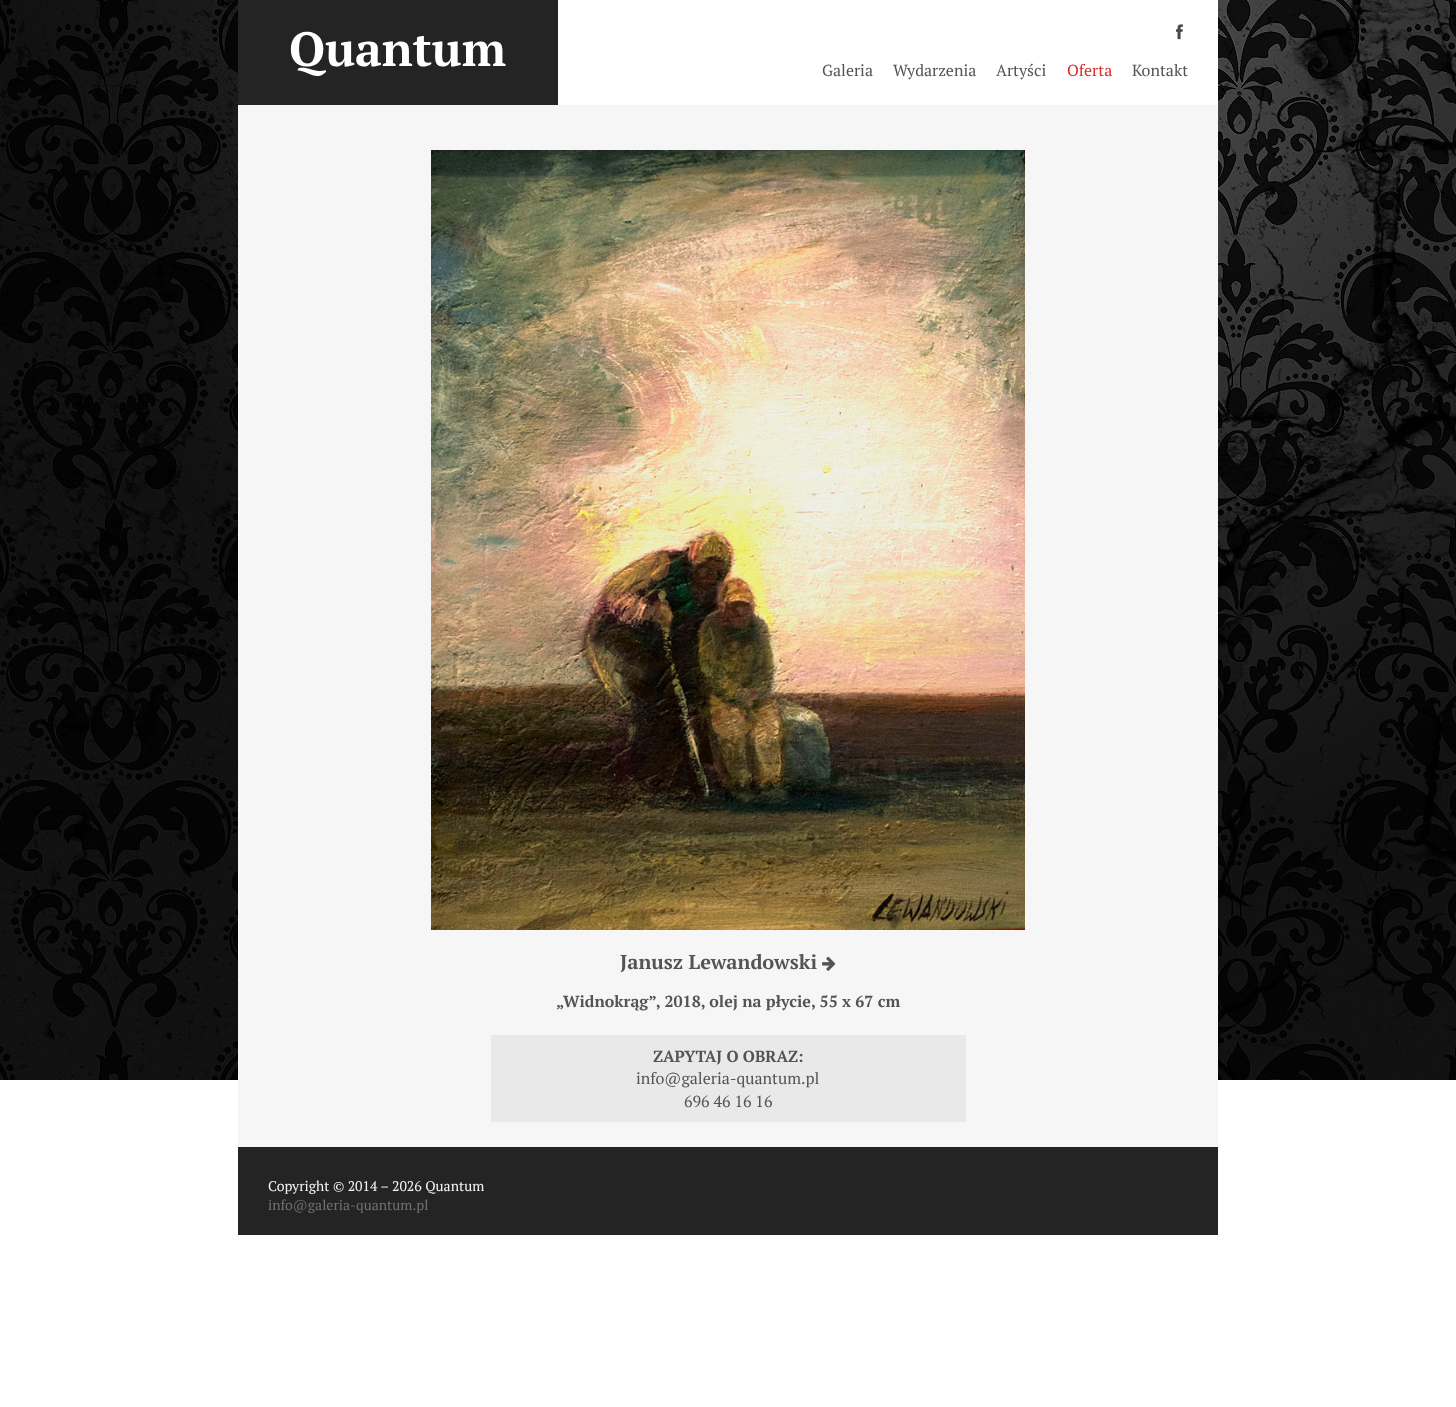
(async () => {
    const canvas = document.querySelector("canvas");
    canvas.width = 1456;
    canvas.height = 1407;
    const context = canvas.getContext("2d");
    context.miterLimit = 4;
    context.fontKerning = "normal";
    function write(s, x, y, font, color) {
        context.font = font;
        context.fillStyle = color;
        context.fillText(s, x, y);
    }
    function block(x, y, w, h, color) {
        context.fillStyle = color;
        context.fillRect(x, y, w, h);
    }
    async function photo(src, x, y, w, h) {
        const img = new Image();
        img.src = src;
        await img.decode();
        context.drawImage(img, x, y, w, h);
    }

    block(0, 0, 1456, 1407, "rgb(255, 255, 255)");
    await photo("media/1.png", 0, 0, 1456, 1080);
    block(238, 105, 980, 1042, "rgb(246, 246, 246)");
    block(558, 0, 660, 105, "rgb(255, 255, 255)");
    block(238, 0, 320, 105, "rgb(36, 36, 36)");
    write("Quantum", 289, 66, "bold 48px PT Serif", "rgb(255, 255, 255)");
    await photo("media/2.png", 1176, 24, 7, 16);
    write("Galeria", 822, 76, "16px PT Serif", "rgb(84, 84, 84)");
    write("Wydarzenia", 893, 76, "16px PT Serif", "rgb(84, 84, 84)");
    write("Artyści", 996, 76, "16px PT Serif", "rgb(84, 84, 84)");
    write("Oferta", 1067, 76, "16px PT Serif", "rgb(216, 43, 43)");
    write("Kontakt", 1132, 76, "16px PT Serif", "rgb(84, 84, 84)");
    await photo("media/3.png", 431, 150, 594, 780);
    write("Janusz Lewandowski", 620, 969, "bold 20px PT Serif", "rgb(84, 84, 84)");
    await photo("media/4.png", 822, 956, 14, 15);
    write("„Widnokrąg”, 2018, olej na płycie, 55 x 67 cm", 556, 1007, "bold 16px PT Serif", "rgb(84, 84, 84)");
    block(491, 1035, 475, 87, "rgb(233, 233, 233)");
    write("ZAPYTAJ O OBRAZ:", 653, 1062, "bold 16px PT Serif", "rgb(84, 84, 84)");
    write("info@galeria-quantum.pl", 636, 1084, "16px PT Serif", "rgb(84, 84, 84)");
    write("696 46 16 16", 684, 1107, "16px PT Serif", "rgb(84, 84, 84)");
    block(238, 1147, 980, 88, "rgb(36, 36, 36)");
    write("Copyright © 2014 – 2026 Quantum", 268, 1191, "14px PT Serif", "rgb(245, 245, 245)");
    write("info@galeria-quantum.pl", 268, 1210, "14px PT Serif", "rgb(112, 112, 112)");
})();
